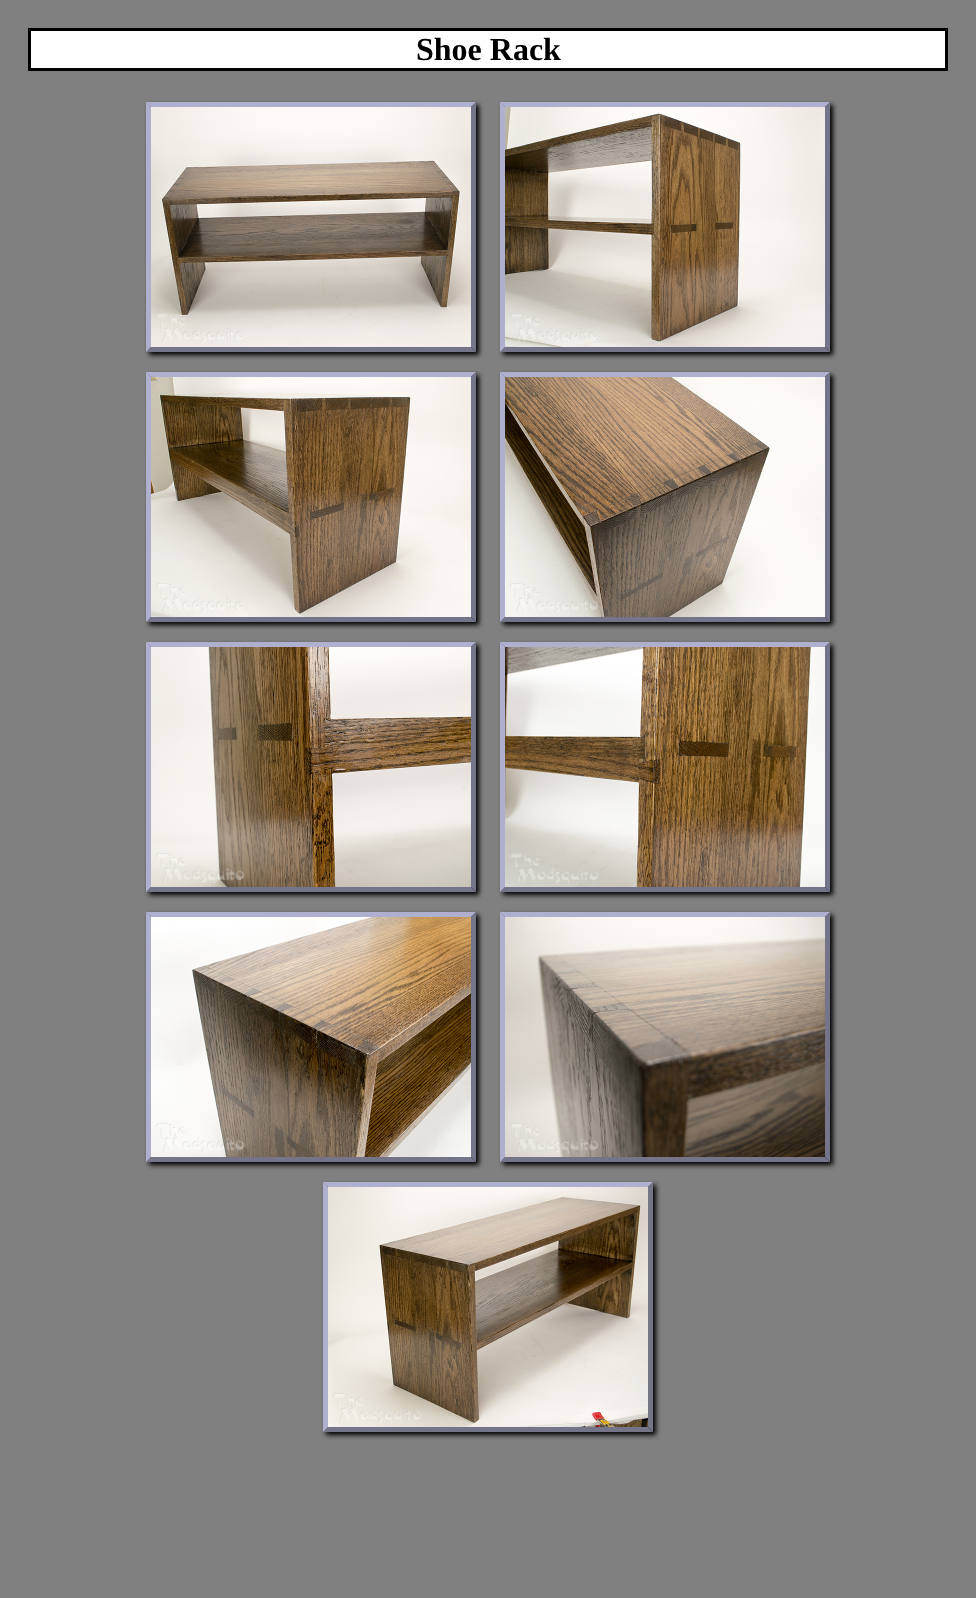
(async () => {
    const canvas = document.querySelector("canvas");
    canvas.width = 976;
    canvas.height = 1598;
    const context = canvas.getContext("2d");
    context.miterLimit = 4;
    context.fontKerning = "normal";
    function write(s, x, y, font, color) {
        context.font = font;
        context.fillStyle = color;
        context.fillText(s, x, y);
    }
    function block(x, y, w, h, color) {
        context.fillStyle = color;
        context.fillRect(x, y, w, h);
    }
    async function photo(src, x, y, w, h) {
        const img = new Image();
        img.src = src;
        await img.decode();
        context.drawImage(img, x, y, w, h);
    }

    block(0, 0, 976, 1598, "rgb(128, 128, 128)");
    context.fillStyle = "rgb(255, 255, 255)";
    context.beginPath();
    context.rect(29.5, 29.5, 917, 40);
    context.fill();
    context.strokeStyle = "rgb(0, 0, 0)";
    context.lineWidth = 3;
    context.stroke();
    write("Shoe Rack", 416, 60, "bold 32px Liberation Serif", "rgb(0, 0, 0)");
    context.filter = "blur(2.5px)";
    context.beginPath();
    context.rect(149, 105, 330, 250);
    context.fill();
    context.filter = "none";
    context.fillStyle = "rgb(175, 175, 207)";
    context.beginPath();
    context.moveTo(146, 102);
    context.lineTo(476, 102);
    context.lineTo(471, 107);
    context.lineTo(151, 107);
    context.closePath();
    context.fill();
    context.fillStyle = "rgb(117, 117, 138)";
    context.beginPath();
    context.moveTo(476, 102);
    context.lineTo(476, 352);
    context.lineTo(471, 347);
    context.lineTo(471, 107);
    context.closePath();
    context.fill();
    context.beginPath();
    context.moveTo(476, 352);
    context.lineTo(146, 352);
    context.lineTo(151, 347);
    context.lineTo(471, 347);
    context.closePath();
    context.fill();
    context.fillStyle = "rgb(175, 175, 207)";
    context.beginPath();
    context.moveTo(146, 352);
    context.lineTo(146, 102);
    context.lineTo(151, 107);
    context.lineTo(151, 347);
    context.closePath();
    context.fill();
    await photo("media/1.png", 151, 107, 320, 240);
    context.fillStyle = "rgb(0, 0, 0)";
    context.filter = "blur(2.5px)";
    context.beginPath();
    context.rect(503, 105, 330, 250);
    context.fill();
    context.filter = "none";
    context.fillStyle = "rgb(175, 175, 207)";
    context.beginPath();
    context.moveTo(500, 102);
    context.lineTo(830, 102);
    context.lineTo(825, 107);
    context.lineTo(505, 107);
    context.closePath();
    context.fill();
    context.fillStyle = "rgb(117, 117, 138)";
    context.beginPath();
    context.moveTo(830, 102);
    context.lineTo(830, 352);
    context.lineTo(825, 347);
    context.lineTo(825, 107);
    context.closePath();
    context.fill();
    context.beginPath();
    context.moveTo(830, 352);
    context.lineTo(500, 352);
    context.lineTo(505, 347);
    context.lineTo(825, 347);
    context.closePath();
    context.fill();
    context.fillStyle = "rgb(175, 175, 207)";
    context.beginPath();
    context.moveTo(500, 352);
    context.lineTo(500, 102);
    context.lineTo(505, 107);
    context.lineTo(505, 347);
    context.closePath();
    context.fill();
    await photo("media/2.png", 505, 107, 320, 240);
    context.fillStyle = "rgb(0, 0, 0)";
    context.filter = "blur(2.5px)";
    context.beginPath();
    context.rect(149, 375, 330, 250);
    context.fill();
    context.filter = "none";
    context.fillStyle = "rgb(175, 175, 207)";
    context.beginPath();
    context.moveTo(146, 372);
    context.lineTo(476, 372);
    context.lineTo(471, 377);
    context.lineTo(151, 377);
    context.closePath();
    context.fill();
    context.fillStyle = "rgb(117, 117, 138)";
    context.beginPath();
    context.moveTo(476, 372);
    context.lineTo(476, 622);
    context.lineTo(471, 617);
    context.lineTo(471, 377);
    context.closePath();
    context.fill();
    context.beginPath();
    context.moveTo(476, 622);
    context.lineTo(146, 622);
    context.lineTo(151, 617);
    context.lineTo(471, 617);
    context.closePath();
    context.fill();
    context.fillStyle = "rgb(175, 175, 207)";
    context.beginPath();
    context.moveTo(146, 622);
    context.lineTo(146, 372);
    context.lineTo(151, 377);
    context.lineTo(151, 617);
    context.closePath();
    context.fill();
    await photo("media/3.png", 151, 377, 320, 240);
    context.fillStyle = "rgb(0, 0, 0)";
    context.filter = "blur(2.5px)";
    context.beginPath();
    context.rect(503, 375, 330, 250);
    context.fill();
    context.filter = "none";
    context.fillStyle = "rgb(175, 175, 207)";
    context.beginPath();
    context.moveTo(500, 372);
    context.lineTo(830, 372);
    context.lineTo(825, 377);
    context.lineTo(505, 377);
    context.closePath();
    context.fill();
    context.fillStyle = "rgb(117, 117, 138)";
    context.beginPath();
    context.moveTo(830, 372);
    context.lineTo(830, 622);
    context.lineTo(825, 617);
    context.lineTo(825, 377);
    context.closePath();
    context.fill();
    context.beginPath();
    context.moveTo(830, 622);
    context.lineTo(500, 622);
    context.lineTo(505, 617);
    context.lineTo(825, 617);
    context.closePath();
    context.fill();
    context.fillStyle = "rgb(175, 175, 207)";
    context.beginPath();
    context.moveTo(500, 622);
    context.lineTo(500, 372);
    context.lineTo(505, 377);
    context.lineTo(505, 617);
    context.closePath();
    context.fill();
    await photo("media/4.png", 505, 377, 320, 240);
    context.fillStyle = "rgb(0, 0, 0)";
    context.filter = "blur(2.5px)";
    context.beginPath();
    context.rect(149, 645, 330, 250);
    context.fill();
    context.filter = "none";
    context.fillStyle = "rgb(175, 175, 207)";
    context.beginPath();
    context.moveTo(146, 642);
    context.lineTo(476, 642);
    context.lineTo(471, 647);
    context.lineTo(151, 647);
    context.closePath();
    context.fill();
    context.fillStyle = "rgb(117, 117, 138)";
    context.beginPath();
    context.moveTo(476, 642);
    context.lineTo(476, 892);
    context.lineTo(471, 887);
    context.lineTo(471, 647);
    context.closePath();
    context.fill();
    context.beginPath();
    context.moveTo(476, 892);
    context.lineTo(146, 892);
    context.lineTo(151, 887);
    context.lineTo(471, 887);
    context.closePath();
    context.fill();
    context.fillStyle = "rgb(175, 175, 207)";
    context.beginPath();
    context.moveTo(146, 892);
    context.lineTo(146, 642);
    context.lineTo(151, 647);
    context.lineTo(151, 887);
    context.closePath();
    context.fill();
    await photo("media/5.png", 151, 647, 320, 240);
    context.fillStyle = "rgb(0, 0, 0)";
    context.filter = "blur(2.5px)";
    context.beginPath();
    context.rect(503, 645, 330, 250);
    context.fill();
    context.filter = "none";
    context.fillStyle = "rgb(175, 175, 207)";
    context.beginPath();
    context.moveTo(500, 642);
    context.lineTo(830, 642);
    context.lineTo(825, 647);
    context.lineTo(505, 647);
    context.closePath();
    context.fill();
    context.fillStyle = "rgb(117, 117, 138)";
    context.beginPath();
    context.moveTo(830, 642);
    context.lineTo(830, 892);
    context.lineTo(825, 887);
    context.lineTo(825, 647);
    context.closePath();
    context.fill();
    context.beginPath();
    context.moveTo(830, 892);
    context.lineTo(500, 892);
    context.lineTo(505, 887);
    context.lineTo(825, 887);
    context.closePath();
    context.fill();
    context.fillStyle = "rgb(175, 175, 207)";
    context.beginPath();
    context.moveTo(500, 892);
    context.lineTo(500, 642);
    context.lineTo(505, 647);
    context.lineTo(505, 887);
    context.closePath();
    context.fill();
    await photo("media/6.png", 505, 647, 320, 240);
    context.fillStyle = "rgb(0, 0, 0)";
    context.filter = "blur(2.5px)";
    context.beginPath();
    context.rect(149, 915, 330, 250);
    context.fill();
    context.filter = "none";
    context.fillStyle = "rgb(175, 175, 207)";
    context.beginPath();
    context.moveTo(146, 912);
    context.lineTo(476, 912);
    context.lineTo(471, 917);
    context.lineTo(151, 917);
    context.closePath();
    context.fill();
    context.fillStyle = "rgb(117, 117, 138)";
    context.beginPath();
    context.moveTo(476, 912);
    context.lineTo(476, 1162);
    context.lineTo(471, 1157);
    context.lineTo(471, 917);
    context.closePath();
    context.fill();
    context.beginPath();
    context.moveTo(476, 1162);
    context.lineTo(146, 1162);
    context.lineTo(151, 1157);
    context.lineTo(471, 1157);
    context.closePath();
    context.fill();
    context.fillStyle = "rgb(175, 175, 207)";
    context.beginPath();
    context.moveTo(146, 1162);
    context.lineTo(146, 912);
    context.lineTo(151, 917);
    context.lineTo(151, 1157);
    context.closePath();
    context.fill();
    await photo("media/7.png", 151, 917, 320, 240);
    context.fillStyle = "rgb(0, 0, 0)";
    context.filter = "blur(2.5px)";
    context.beginPath();
    context.rect(503, 915, 330, 250);
    context.fill();
    context.filter = "none";
    context.fillStyle = "rgb(175, 175, 207)";
    context.beginPath();
    context.moveTo(500, 912);
    context.lineTo(830, 912);
    context.lineTo(825, 917);
    context.lineTo(505, 917);
    context.closePath();
    context.fill();
    context.fillStyle = "rgb(117, 117, 138)";
    context.beginPath();
    context.moveTo(830, 912);
    context.lineTo(830, 1162);
    context.lineTo(825, 1157);
    context.lineTo(825, 917);
    context.closePath();
    context.fill();
    context.beginPath();
    context.moveTo(830, 1162);
    context.lineTo(500, 1162);
    context.lineTo(505, 1157);
    context.lineTo(825, 1157);
    context.closePath();
    context.fill();
    context.fillStyle = "rgb(175, 175, 207)";
    context.beginPath();
    context.moveTo(500, 1162);
    context.lineTo(500, 912);
    context.lineTo(505, 917);
    context.lineTo(505, 1157);
    context.closePath();
    context.fill();
    await photo("media/8.png", 505, 917, 320, 240);
    context.fillStyle = "rgb(0, 0, 0)";
    context.filter = "blur(2.5px)";
    context.beginPath();
    context.rect(326, 1185, 330, 250);
    context.fill();
    context.filter = "none";
    context.fillStyle = "rgb(175, 175, 207)";
    context.beginPath();
    context.moveTo(323, 1182);
    context.lineTo(653, 1182);
    context.lineTo(648, 1187);
    context.lineTo(328, 1187);
    context.closePath();
    context.fill();
    context.fillStyle = "rgb(117, 117, 138)";
    context.beginPath();
    context.moveTo(653, 1182);
    context.lineTo(653, 1432);
    context.lineTo(648, 1427);
    context.lineTo(648, 1187);
    context.closePath();
    context.fill();
    context.beginPath();
    context.moveTo(653, 1432);
    context.lineTo(323, 1432);
    context.lineTo(328, 1427);
    context.lineTo(648, 1427);
    context.closePath();
    context.fill();
    context.fillStyle = "rgb(175, 175, 207)";
    context.beginPath();
    context.moveTo(323, 1432);
    context.lineTo(323, 1182);
    context.lineTo(328, 1187);
    context.lineTo(328, 1427);
    context.closePath();
    context.fill();
    await photo("media/9.png", 328, 1187, 320, 240);
})();
